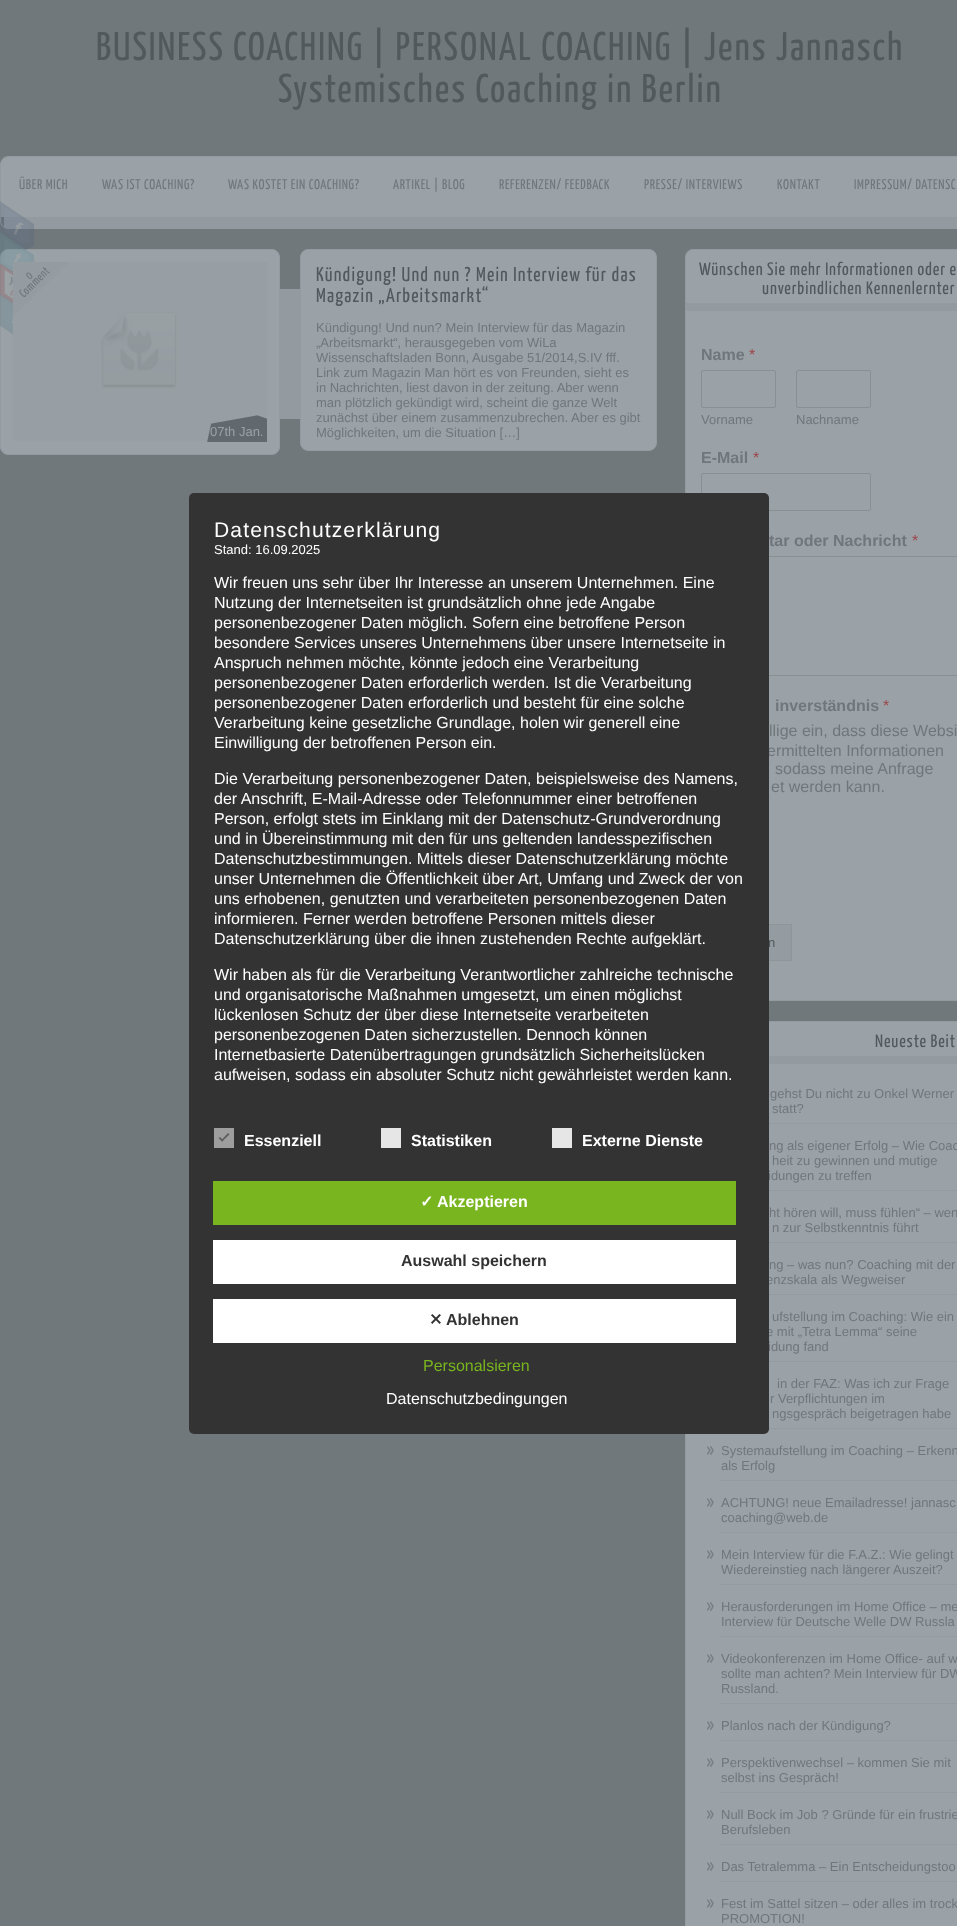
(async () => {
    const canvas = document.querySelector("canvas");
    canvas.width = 957;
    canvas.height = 1926;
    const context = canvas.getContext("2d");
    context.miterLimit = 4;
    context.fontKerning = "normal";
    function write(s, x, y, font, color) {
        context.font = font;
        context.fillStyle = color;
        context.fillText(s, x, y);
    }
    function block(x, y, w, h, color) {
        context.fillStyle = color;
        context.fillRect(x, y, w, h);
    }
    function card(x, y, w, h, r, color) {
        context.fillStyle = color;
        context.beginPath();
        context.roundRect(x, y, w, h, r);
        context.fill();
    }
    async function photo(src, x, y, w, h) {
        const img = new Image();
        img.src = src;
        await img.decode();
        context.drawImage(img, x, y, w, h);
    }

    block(0, 0, 957, 1926, "rgb(112, 120, 124)");
    context.fillStyle = "rgb(155, 162, 167)";
    context.beginPath();
    context.moveTo(8, 157);
    context.lineTo(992, 157);
    context.bezierCurveTo(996, 157, 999, 160, 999, 164);
    context.lineTo(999, 217);
    context.lineTo(1, 217);
    context.lineTo(1, 164);
    context.bezierCurveTo(1, 160, 4, 157, 8, 157);
    context.closePath();
    context.fill();
    context.beginPath();
    context.roundRect(0.5, 156.5, 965, 72, 7.5);
    context.strokeStyle = "rgb(148, 155, 160)";
    context.stroke();
    block(4, 217, 953, 11, "rgb(148, 155, 160)");
    context.fillStyle = "rgb(155, 162, 167)";
    context.beginPath();
    context.roundRect(0.5, 249.5, 279, 205, 7.5);
    context.fill();
    context.stroke();
    await photo("media/1.png", 0, 201, 35, 49);
    await photo("media/2.png", 0, 232, 35, 41);
    await photo("media/3.png", 0, 263, 13, 41);
    await photo("media/4.png", 0, 294, 13, 41);
    context.letterSpacing = "2px";
    write("BUSINESS COACHING | PERSONAL COACHING | Jens Jannasch", 96, 60, "40px Yanone Kaffeesatz", "rgb(81, 89, 93)");
    write("Systemisches Coaching in Berlin", 278, 102, "40px Yanone Kaffeesatz", "rgb(81, 89, 93)");
    context.letterSpacing = "0.7px";
    write("ÜBER MICH", 19, 189, "14px Yanone Kaffeesatz", "rgb(112, 119, 124)");
    write("WAS IST COACHING?", 102, 189, "14px Yanone Kaffeesatz", "rgb(112, 119, 124)");
    write("WAS KOSTET EIN COACHING?", 228, 189, "14px Yanone Kaffeesatz", "rgb(112, 119, 124)");
    write("ARTIKEL | BLOG", 393, 189, "14px Yanone Kaffeesatz", "rgb(112, 119, 124)");
    write("REFERENZEN/ FEEDBACK", 499, 189, "14px Yanone Kaffeesatz", "rgb(112, 119, 124)");
    write("PRESSE/ INTERVIEWS", 644, 189, "14px Yanone Kaffeesatz", "rgb(112, 119, 124)");
    write("KONTAKT", 777, 189, "14px Yanone Kaffeesatz", "rgb(112, 119, 124)");
    write("IMPRESSUM/ DATENSC", 854, 189, "14px Yanone Kaffeesatz", "rgb(112, 119, 124)");
    await photo("media/5.png", 13, 262, 254, 179);
    await photo("media/6.png", 13, 262, 56, 54);
    context.letterSpacing = "0.5px";
    context.font = "12px Yanone Kaffeesatz";
    context.save();
    context.translate(30, 280);
    context.rotate(-45 * Math.PI / 180);
    context.fillText("0", 0, 0);
    context.restore();
    context.save();
    context.translate(24, 298);
    context.rotate(-45 * Math.PI / 180);
    context.fillText("Comment", 0, 0);
    context.restore();
    await photo("media/7.png", 207, 415, 60, 27);
    context.letterSpacing = "0px";
    write("07th Jan.", 210, 436, "13px Liberation Sans", "rgb(155, 162, 167)");
    block(280, 289, 20, 130, "rgb(148, 155, 160)");
    context.fillStyle = "rgb(155, 162, 167)";
    context.beginPath();
    context.roundRect(300.5, 249.5, 356, 201, 7.5);
    context.fill();
    context.stroke();
    context.letterSpacing = "1.2px";
    write("Kündigung! Und nun ? Mein Interview für das", 316, 281, "20px Yanone Kaffeesatz", "rgb(81, 89, 93)");
    write("Magazin „Arbeitsmarkt“", 316, 302, "20px Yanone Kaffeesatz", "rgb(81, 89, 93)");
    context.letterSpacing = "0px";
    write("Kündigung! Und nun? Mein Interview für das Magazin", 316, 332, "13px Liberation Sans", "rgb(112, 119, 124)");
    write("„Arbeitsmarkt“, herausgegeben vom WiLa", 316, 347, "13px Liberation Sans", "rgb(112, 119, 124)");
    write("Wissenschaftsladen Bonn, Ausgabe 51/2014,S.IV fff.", 316, 362, "13px Liberation Sans", "rgb(112, 119, 124)");
    write("Link zum Magazin Man hört es von Freunden, sieht es", 316, 377, "13px Liberation Sans", "rgb(112, 119, 124)");
    write("in Nachrichten, liest davon in der zeitung. Aber wenn", 316, 392, "13px Liberation Sans", "rgb(112, 119, 124)");
    write("man plötzlich gekündigt wird, scheint die ganze Welt", 316, 407, "13px Liberation Sans", "rgb(112, 119, 124)");
    write("zunächst über einem zusammenzubrechen. Aber es gibt", 316, 422, "13px Liberation Sans", "rgb(112, 119, 124)");
    write("Möglichkeiten, um die Situation […]", 316, 437, "13px Liberation Sans", "rgb(112, 119, 124)");
    context.fillStyle = "rgb(155, 162, 167)";
    context.beginPath();
    context.roundRect(685.5, 249.5, 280, 751, 7.5);
    context.fill();
    context.stroke();
    block(686, 303, 271, 8, "rgb(148, 155, 160)");
    context.letterSpacing = "0.9px";
    write("Wünschen Sie mehr Informationen oder e", 699, 275, "18px Yanone Kaffeesatz", "rgb(81, 89, 93)");
    write("unverbindlichen Kennenlernter", 762, 294, "18px Yanone Kaffeesatz", "rgb(81, 89, 93)");
    context.letterSpacing = "0px";
    write("Name", 701, 360, "bold 16px Liberation Sans", "rgb(112, 119, 124)");
    write("*", 749, 360, "16px Liberation Sans", "rgb(155, 70, 75)");
    context.beginPath();
    context.roundRect(701.5, 370.5, 74, 37, 1.5);
    context.strokeStyle = "rgb(136, 144, 148)";
    context.stroke();
    write("Vorname", 701, 424, "13px Liberation Sans", "rgb(112, 119, 124)");
    context.beginPath();
    context.roundRect(796.5, 370.5, 74, 37, 1.5);
    context.stroke();
    write("Nachname", 796, 424, "13px Liberation Sans", "rgb(112, 119, 124)");
    write("E-Mail", 701, 463, "bold 16px Liberation Sans", "rgb(112, 119, 124)");
    write("*", 753, 463, "16px Liberation Sans", "rgb(155, 70, 75)");
    context.beginPath();
    context.roundRect(701.5, 473.5, 169, 37, 1.5);
    context.stroke();
    write("tar oder Nachricht", 769, 546, "bold 16px Liberation Sans", "rgb(112, 119, 124)");
    write("*", 912, 546, "16px Liberation Sans", "rgb(155, 70, 75)");
    context.strokeRect(701.5, 556.5, 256, 119);
    write("inverständnis", 775, 711, "bold 16px Liberation Sans", "rgb(112, 119, 124)");
    write("*", 883, 711, "16px Liberation Sans", "rgb(155, 70, 75)");
    write("llige ein, dass diese Websi", 769, 736, "16px Liberation Sans", "rgb(112, 119, 124)");
    write("ermittelten Informationen", 767, 756, "16px Liberation Sans", "rgb(112, 119, 124)");
    write("sodass meine Anfrage", 775, 774, "16px Liberation Sans", "rgb(112, 119, 124)");
    write("et werden kann.", 771, 792, "16px Liberation Sans", "rgb(112, 119, 124)");
    block(769, 925, 22, 35, "rgb(148, 156, 161)");
    context.strokeStyle = "rgb(142, 150, 154)";
    context.strokeRect(701.5, 924.5, 90, 36);
    write("n", 768, 947, "13px Liberation Sans", "rgb(81, 89, 93)");
    context.fillStyle = "rgb(155, 162, 167)";
    context.beginPath();
    context.rect(685.5, 1021.5, 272, 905);
    context.fill();
    context.strokeStyle = "rgb(148, 155, 160)";
    context.stroke();
    block(769, 1056, 188, 8, "rgb(148, 155, 160)");
    context.letterSpacing = "0.9px";
    write("Neueste Beit", 875, 1047, "18px Yanone Kaffeesatz", "rgb(81, 89, 93)");
    block(769, 1123, 188, 1, "rgb(148, 155, 160)");
    context.letterSpacing = "0px";
    write("gehst Du nicht zu Onkel Werner", 770, 1098, "13px Liberation Sans", "rgb(112, 119, 124)");
    write("statt?", 772, 1113, "13px Liberation Sans", "rgb(112, 119, 124)");
    block(769, 1190, 188, 1, "rgb(148, 155, 160)");
    write("ng als eigener Erfolg – Wie Coac", 769, 1150, "13px Liberation Sans", "rgb(112, 119, 124)");
    write("heit zu gewinnen und mutige", 772, 1165, "13px Liberation Sans", "rgb(112, 119, 124)");
    write("idungen zu treffen", 768, 1180, "13px Liberation Sans", "rgb(112, 119, 124)");
    block(769, 1242, 188, 1, "rgb(148, 155, 160)");
    write("ht hören will, muss fühlen“ – wen", 769, 1217, "13px Liberation Sans", "rgb(112, 119, 124)");
    write("n zur Selbstkenntnis führt", 772, 1232, "13px Liberation Sans", "rgb(112, 119, 124)");
    block(769, 1294, 188, 1, "rgb(148, 155, 160)");
    write("ng – was nun? Coaching mit der", 769, 1269, "13px Liberation Sans", "rgb(112, 119, 124)");
    write("enzskala als Wegweiser", 766, 1284, "13px Liberation Sans", "rgb(112, 119, 124)");
    block(769, 1361, 188, 1, "rgb(148, 155, 160)");
    write("ufstellung im Coaching: Wie ein", 772, 1321, "13px Liberation Sans", "rgb(112, 119, 124)");
    write("e mit „Tetra Lemma“ seine", 766, 1336, "13px Liberation Sans", "rgb(112, 119, 124)");
    write("idung fand", 768, 1351, "13px Liberation Sans", "rgb(112, 119, 124)");
    block(769, 1428, 188, 1, "rgb(148, 155, 160)");
    write("in der FAZ: Was ich zur Frage", 777, 1388, "13px Liberation Sans", "rgb(112, 119, 124)");
    write("r Verpflichtungen im", 770, 1403, "13px Liberation Sans", "rgb(112, 119, 124)");
    write("ngsgespräch beigetragen habe", 772, 1418, "13px Liberation Sans", "rgb(112, 119, 124)");
    block(721, 1480, 236, 1, "rgb(148, 155, 160)");
    await photo("media/8.png", 707, 1446, 7, 9);
    write("Systemaufstellung im Coaching – Erkenn", 721, 1455, "13px Liberation Sans", "rgb(112, 119, 124)");
    write("als Erfolg", 721, 1470, "13px Liberation Sans", "rgb(112, 119, 124)");
    block(721, 1532, 236, 1, "rgb(148, 155, 160)");
    await photo("media/8.png", 707, 1498, 7, 9);
    write("ACHTUNG! neue Emailadresse! jannasc", 721, 1507, "13px Liberation Sans", "rgb(112, 119, 124)");
    write("coaching@web.de", 721, 1522, "13px Liberation Sans", "rgb(112, 119, 124)");
    block(721, 1584, 236, 1, "rgb(148, 155, 160)");
    await photo("media/8.png", 707, 1550, 7, 9);
    write("Mein Interview für die F.A.Z.: Wie gelingt", 721, 1559, "13px Liberation Sans", "rgb(112, 119, 124)");
    write("Wiedereinstieg nach längerer Auszeit?", 721, 1574, "13px Liberation Sans", "rgb(112, 119, 124)");
    block(721, 1636, 236, 1, "rgb(148, 155, 160)");
    await photo("media/8.png", 707, 1602, 7, 9);
    write("Herausforderungen im Home Office – me", 721, 1611, "13px Liberation Sans", "rgb(112, 119, 124)");
    write("Interview für Deutsche Welle DW Russla", 721, 1626, "13px Liberation Sans", "rgb(112, 119, 124)");
    block(721, 1703, 236, 1, "rgb(148, 155, 160)");
    await photo("media/8.png", 707, 1654, 7, 9);
    write("Videokonferenzen im Home Office- auf w", 721, 1663, "13px Liberation Sans", "rgb(112, 119, 124)");
    write("sollte man achten? Mein Interview für DW", 721, 1678, "13px Liberation Sans", "rgb(112, 119, 124)");
    write("Russland.", 721, 1693, "13px Liberation Sans", "rgb(112, 119, 124)");
    block(721, 1740, 236, 1, "rgb(148, 155, 160)");
    await photo("media/8.png", 707, 1721, 7, 9);
    write("Planlos nach der Kündigung?", 721, 1730, "13px Liberation Sans", "rgb(112, 119, 124)");
    block(721, 1792, 236, 1, "rgb(148, 155, 160)");
    await photo("media/8.png", 707, 1758, 7, 9);
    write("Perspektivenwechsel – kommen Sie mit", 721, 1767, "13px Liberation Sans", "rgb(112, 119, 124)");
    write("selbst ins Gespräch!", 721, 1782, "13px Liberation Sans", "rgb(112, 119, 124)");
    block(721, 1844, 236, 1, "rgb(148, 155, 160)");
    await photo("media/8.png", 707, 1810, 7, 9);
    write("Null Bock im Job ? Gründe für ein frustrie", 721, 1819, "13px Liberation Sans", "rgb(112, 119, 124)");
    write("Berufsleben", 721, 1834, "13px Liberation Sans", "rgb(112, 119, 124)");
    block(721, 1881, 236, 1, "rgb(148, 155, 160)");
    await photo("media/8.png", 707, 1862, 7, 9);
    write("Das Tetralemma – Ein Entscheidungstoo", 721, 1871, "13px Liberation Sans", "rgb(112, 119, 124)");
    await photo("media/8.png", 707, 1899, 7, 9);
    write("Fest im Sattel sitzen – oder alles im trock", 721, 1908, "13px Liberation Sans", "rgb(112, 119, 124)");
    write("PROMOTION!", 721, 1923, "13px Liberation Sans", "rgb(112, 119, 124)");
    card(189, 493, 580, 941, 5, "rgb(51, 51, 51)");
    context.letterSpacing = "1.1px";
    write("Datenschutzerklärung", 214, 537, "21.1px Liberation Sans", "rgb(255, 255, 255)");
    context.letterSpacing = "0px";
    write("Stand: 16.09.2025", 214, 554, "13px Liberation Sans", "rgb(255, 255, 255)");
    write("Wir freuen uns sehr über Ihr Interesse an unserem Unternehmen. Eine", 214, 588, "16px Liberation Sans", "rgb(255, 255, 255)");
    write("Nutzung der Internetseiten ist grundsätzlich ohne jede Angabe", 214, 608, "16px Liberation Sans", "rgb(255, 255, 255)");
    write("personenbezogener Daten möglich. Sofern eine betroffene Person", 214, 628, "16px Liberation Sans", "rgb(255, 255, 255)");
    write("besondere Services unseres Unternehmens über unsere Internetseite in", 214, 648, "16px Liberation Sans", "rgb(255, 255, 255)");
    write("Anspruch nehmen möchte, könnte jedoch eine Verarbeitung", 214, 668, "16px Liberation Sans", "rgb(255, 255, 255)");
    write("personenbezogener Daten erforderlich werden. Ist die Verarbeitung", 214, 688, "16px Liberation Sans", "rgb(255, 255, 255)");
    write("personenbezogener Daten erforderlich und besteht für eine solche", 214, 708, "16px Liberation Sans", "rgb(255, 255, 255)");
    write("Verarbeitung keine gesetzliche Grundlage, holen wir generell eine", 214, 728, "16px Liberation Sans", "rgb(255, 255, 255)");
    write("Einwilligung der betroffenen Person ein.", 214, 748, "16px Liberation Sans", "rgb(255, 255, 255)");
    write("Die Verarbeitung personenbezogener Daten, beispielsweise des Namens,", 214, 784, "16px Liberation Sans", "rgb(255, 255, 255)");
    write("der Anschrift, E-Mail-Adresse oder Telefonnummer einer betroffenen", 214, 804, "16px Liberation Sans", "rgb(255, 255, 255)");
    write("Person, erfolgt stets im Einklang mit der Datenschutz-Grundverordnung", 214, 824, "16px Liberation Sans", "rgb(255, 255, 255)");
    write("und in Übereinstimmung mit den für uns geltenden landesspezifischen", 214, 844, "16px Liberation Sans", "rgb(255, 255, 255)");
    write("Datenschutzbestimmungen. Mittels dieser Datenschutzerklärung möchte", 214, 864, "16px Liberation Sans", "rgb(255, 255, 255)");
    write("unser Unternehmen die Öffentlichkeit über Art, Umfang und Zweck der von", 214, 884, "16px Liberation Sans", "rgb(255, 255, 255)");
    write("uns erhobenen, genutzten und verarbeiteten personenbezogenen Daten", 214, 904, "16px Liberation Sans", "rgb(255, 255, 255)");
    write("informieren. Ferner werden betroffene Personen mittels dieser", 214, 924, "16px Liberation Sans", "rgb(255, 255, 255)");
    write("Datenschutzerklärung über die ihnen zustehenden Rechte aufgeklärt.", 214, 944, "16px Liberation Sans", "rgb(255, 255, 255)");
    write("Wir haben als für die Verarbeitung Verantwortlicher zahlreiche technische", 214, 980, "16px Liberation Sans", "rgb(255, 255, 255)");
    write("und organisatorische Maßnahmen umgesetzt, um einen möglichst", 214, 1000, "16px Liberation Sans", "rgb(255, 255, 255)");
    write("lückenlosen Schutz der über diese Internetseite verarbeiteten", 214, 1020, "16px Liberation Sans", "rgb(255, 255, 255)");
    write("personenbezogenen Daten sicherzustellen. Dennoch können", 214, 1040, "16px Liberation Sans", "rgb(255, 255, 255)");
    write("Internetbasierte Datenübertragungen grundsätzlich Sicherheitslücken", 214, 1060, "16px Liberation Sans", "rgb(255, 255, 255)");
    write("aufweisen, sodass ein absoluter Schutz nicht gewährleistet werden kann.", 214, 1080, "16px Liberation Sans", "rgb(255, 255, 255)");
    block(214, 1128, 20, 20, "rgb(158, 158, 158)");
    context.fillStyle = "rgb(94, 94, 94)";
    context.beginPath();
    context.moveTo(228, 1133);
    context.lineTo(229.5, 1134.5);
    context.lineTo(222, 1141.5);
    context.lineTo(221, 1140.5);
    context.closePath();
    context.fill();
    context.beginPath();
    context.moveTo(220, 1137);
    context.lineTo(223.5, 1140.5);
    context.lineTo(222, 1141.5);
    context.lineTo(218.5, 1138);
    context.closePath();
    context.fill();
    write("Essenziell", 244, 1146, "bold 16px Liberation Sans", "rgb(255, 255, 255)");
    block(381, 1128, 20, 20, "rgb(230, 230, 230)");
    write("Statistiken", 411, 1146, "bold 16px Liberation Sans", "rgb(255, 255, 255)");
    block(552, 1128, 20, 20, "rgb(230, 230, 230)");
    write("Externe Dienste", 582, 1146, "bold 16px Liberation Sans", "rgb(255, 255, 255)");
    block(213, 1181, 523, 44, "rgb(121, 181, 31)");
    write("✓", 420, 1207, "bold 16px DejaVu Sans", "rgb(255, 255, 255)");
    write("Akzeptieren", 437, 1207, "bold 16px Liberation Sans", "rgb(255, 255, 255)");
    block(213, 1240, 523, 44, "rgb(255, 255, 255)");
    write("Auswahl speichern", 401, 1266, "bold 16px Liberation Sans", "rgb(51, 51, 51)");
    block(213, 1299, 523, 44, "rgb(255, 255, 255)");
    write("✕", 429, 1325, "bold 16px DejaVu Sans", "rgb(51, 51, 51)");
    write("Ablehnen", 446, 1325, "bold 16px Liberation Sans", "rgb(51, 51, 51)");
    write("Personalsieren", 423, 1371, "16px Liberation Sans", "rgb(121, 181, 31)");
    write("Datenschutzbedingungen", 386, 1404, "16px Liberation Sans", "rgb(255, 255, 255)");
})();
